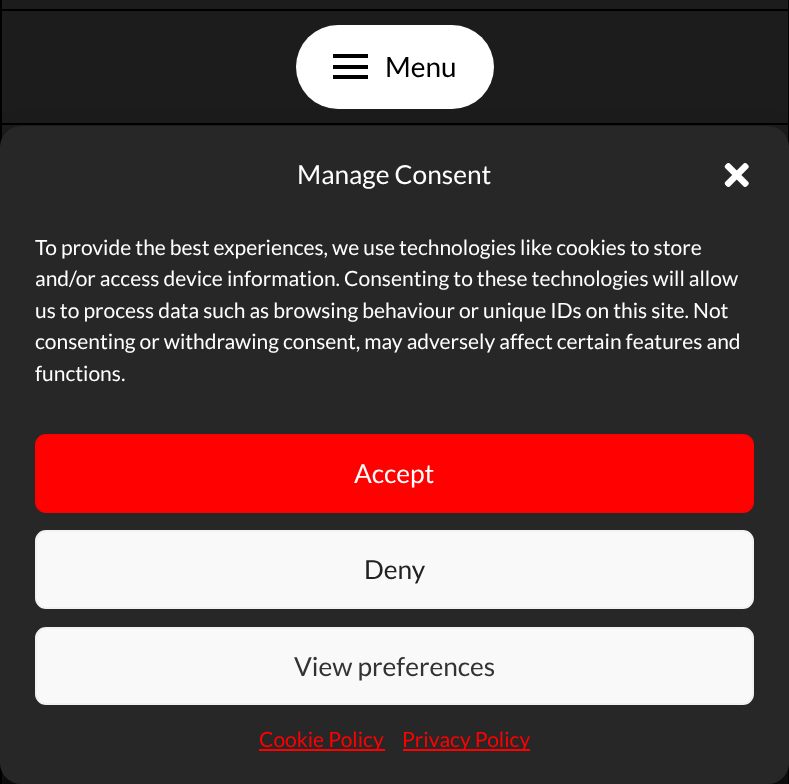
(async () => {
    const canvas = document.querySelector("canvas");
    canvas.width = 789;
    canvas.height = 784;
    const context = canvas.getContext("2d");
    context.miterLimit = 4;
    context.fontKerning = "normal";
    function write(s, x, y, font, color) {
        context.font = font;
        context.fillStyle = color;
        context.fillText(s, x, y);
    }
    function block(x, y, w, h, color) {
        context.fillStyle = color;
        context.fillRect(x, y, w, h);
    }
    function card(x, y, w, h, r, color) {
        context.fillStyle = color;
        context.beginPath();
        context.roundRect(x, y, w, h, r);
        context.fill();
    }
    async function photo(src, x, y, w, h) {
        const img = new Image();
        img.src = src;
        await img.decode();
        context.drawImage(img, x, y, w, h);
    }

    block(0, 0, 789, 784, "rgb(28, 28, 28)");
    block(788, 0, 1, 784, "rgb(1, 1, 1)");
    block(0, 0, 2, 784, "rgb(1, 1, 1)");
    block(2, 9, 786, 2, "rgb(0, 0, 0)");
    block(2, 123, 786, 2, "rgb(0, 0, 0)");
    card(296, 25, 198, 84, 42, "rgb(255, 255, 255)");
    block(333, 54, 35, 4, "rgb(0, 0, 0)");
    block(333, 65, 35, 4, "rgb(0, 0, 0)");
    block(333, 75, 35, 4, "rgb(0, 0, 0)");
    write("Menu", 385, 77, "28px Lato", "rgb(0, 0, 0)");
    block(2, 769, 786, 15, "rgb(18, 18, 18)");
    context.fillStyle = "rgba(0, 0, 0, 0.23)";
    context.filter = "blur(5px)";
    context.beginPath();
    context.roundRect(0, 137, 789, 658, 21);
    context.fill();
    context.filter = "none";
    context.fillStyle = "rgba(0, 0, 0, 0.19)";
    context.filter = "blur(17.5px)";
    context.beginPath();
    context.roundRect(0, 144, 789, 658, 21);
    context.fill();
    context.filter = "none";
    context.fillStyle = "rgb(128, 128, 128)";
    context.filter = "blur(4.5px)";
    context.beginPath();
    context.roundRect(667, 655, 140, 105, 4);
    context.fill();
    context.filter = "none";
    card(0, 126, 789, 658, 21, "rgb(39, 39, 39)");
    write("Manage Consent", 297, 184, "26.25px Lato", "rgb(255, 255, 255)");
    await photo("media/1.png", 724, 163, 25, 24);
    write("To provide the best experiences, we use technologies like cookies to store", 35, 255, "21px Lato", "rgb(255, 255, 255)");
    write("and/or access device information. Consenting to these technologies will allow", 35, 286, "21px Lato", "rgb(255, 255, 255)");
    write("us to process data such as browsing behaviour or unique IDs on this site. Not", 35, 318, "21px Lato", "rgb(255, 255, 255)");
    write("consenting or withdrawing consent, may adversely affect certain features and", 35, 349, "21px Lato", "rgb(255, 255, 255)");
    write("functions.", 35, 381, "21px Lato", "rgb(255, 255, 255)");
    context.fillStyle = "rgb(255, 1, 1)";
    context.beginPath();
    context.roundRect(36, 435, 717, 77, 10);
    context.fill();
    context.strokeStyle = "rgb(255, 0, 0)";
    context.lineWidth = 2;
    context.stroke();
    write("Accept", 354, 483, "26.25px Lato", "rgb(255, 255, 255)");
    context.fillStyle = "rgb(249, 249, 249)";
    context.beginPath();
    context.roundRect(36, 531, 717, 77, 10);
    context.fill();
    context.strokeStyle = "rgb(242, 242, 242)";
    context.stroke();
    write("Deny", 364, 579, "26.25px Lato", "rgb(34, 34, 34)");
    context.fillStyle = "rgb(249, 249, 249)";
    context.beginPath();
    context.roundRect(36, 628, 717, 76, 10);
    context.fill();
    context.stroke();
    write("View preferences", 294, 676, "26.25px Lato", "rgb(51, 51, 51)");
    block(259, 749, 126, 2, "rgb(255, 0, 0)");
    write("Cookie Policy", 259, 747, "21px Lato", "rgb(255, 0, 0)");
    block(403, 749, 127, 2, "rgb(255, 0, 0)");
    write("Privacy Policy", 402, 747, "21px Lato", "rgb(255, 0, 0)");
})();
